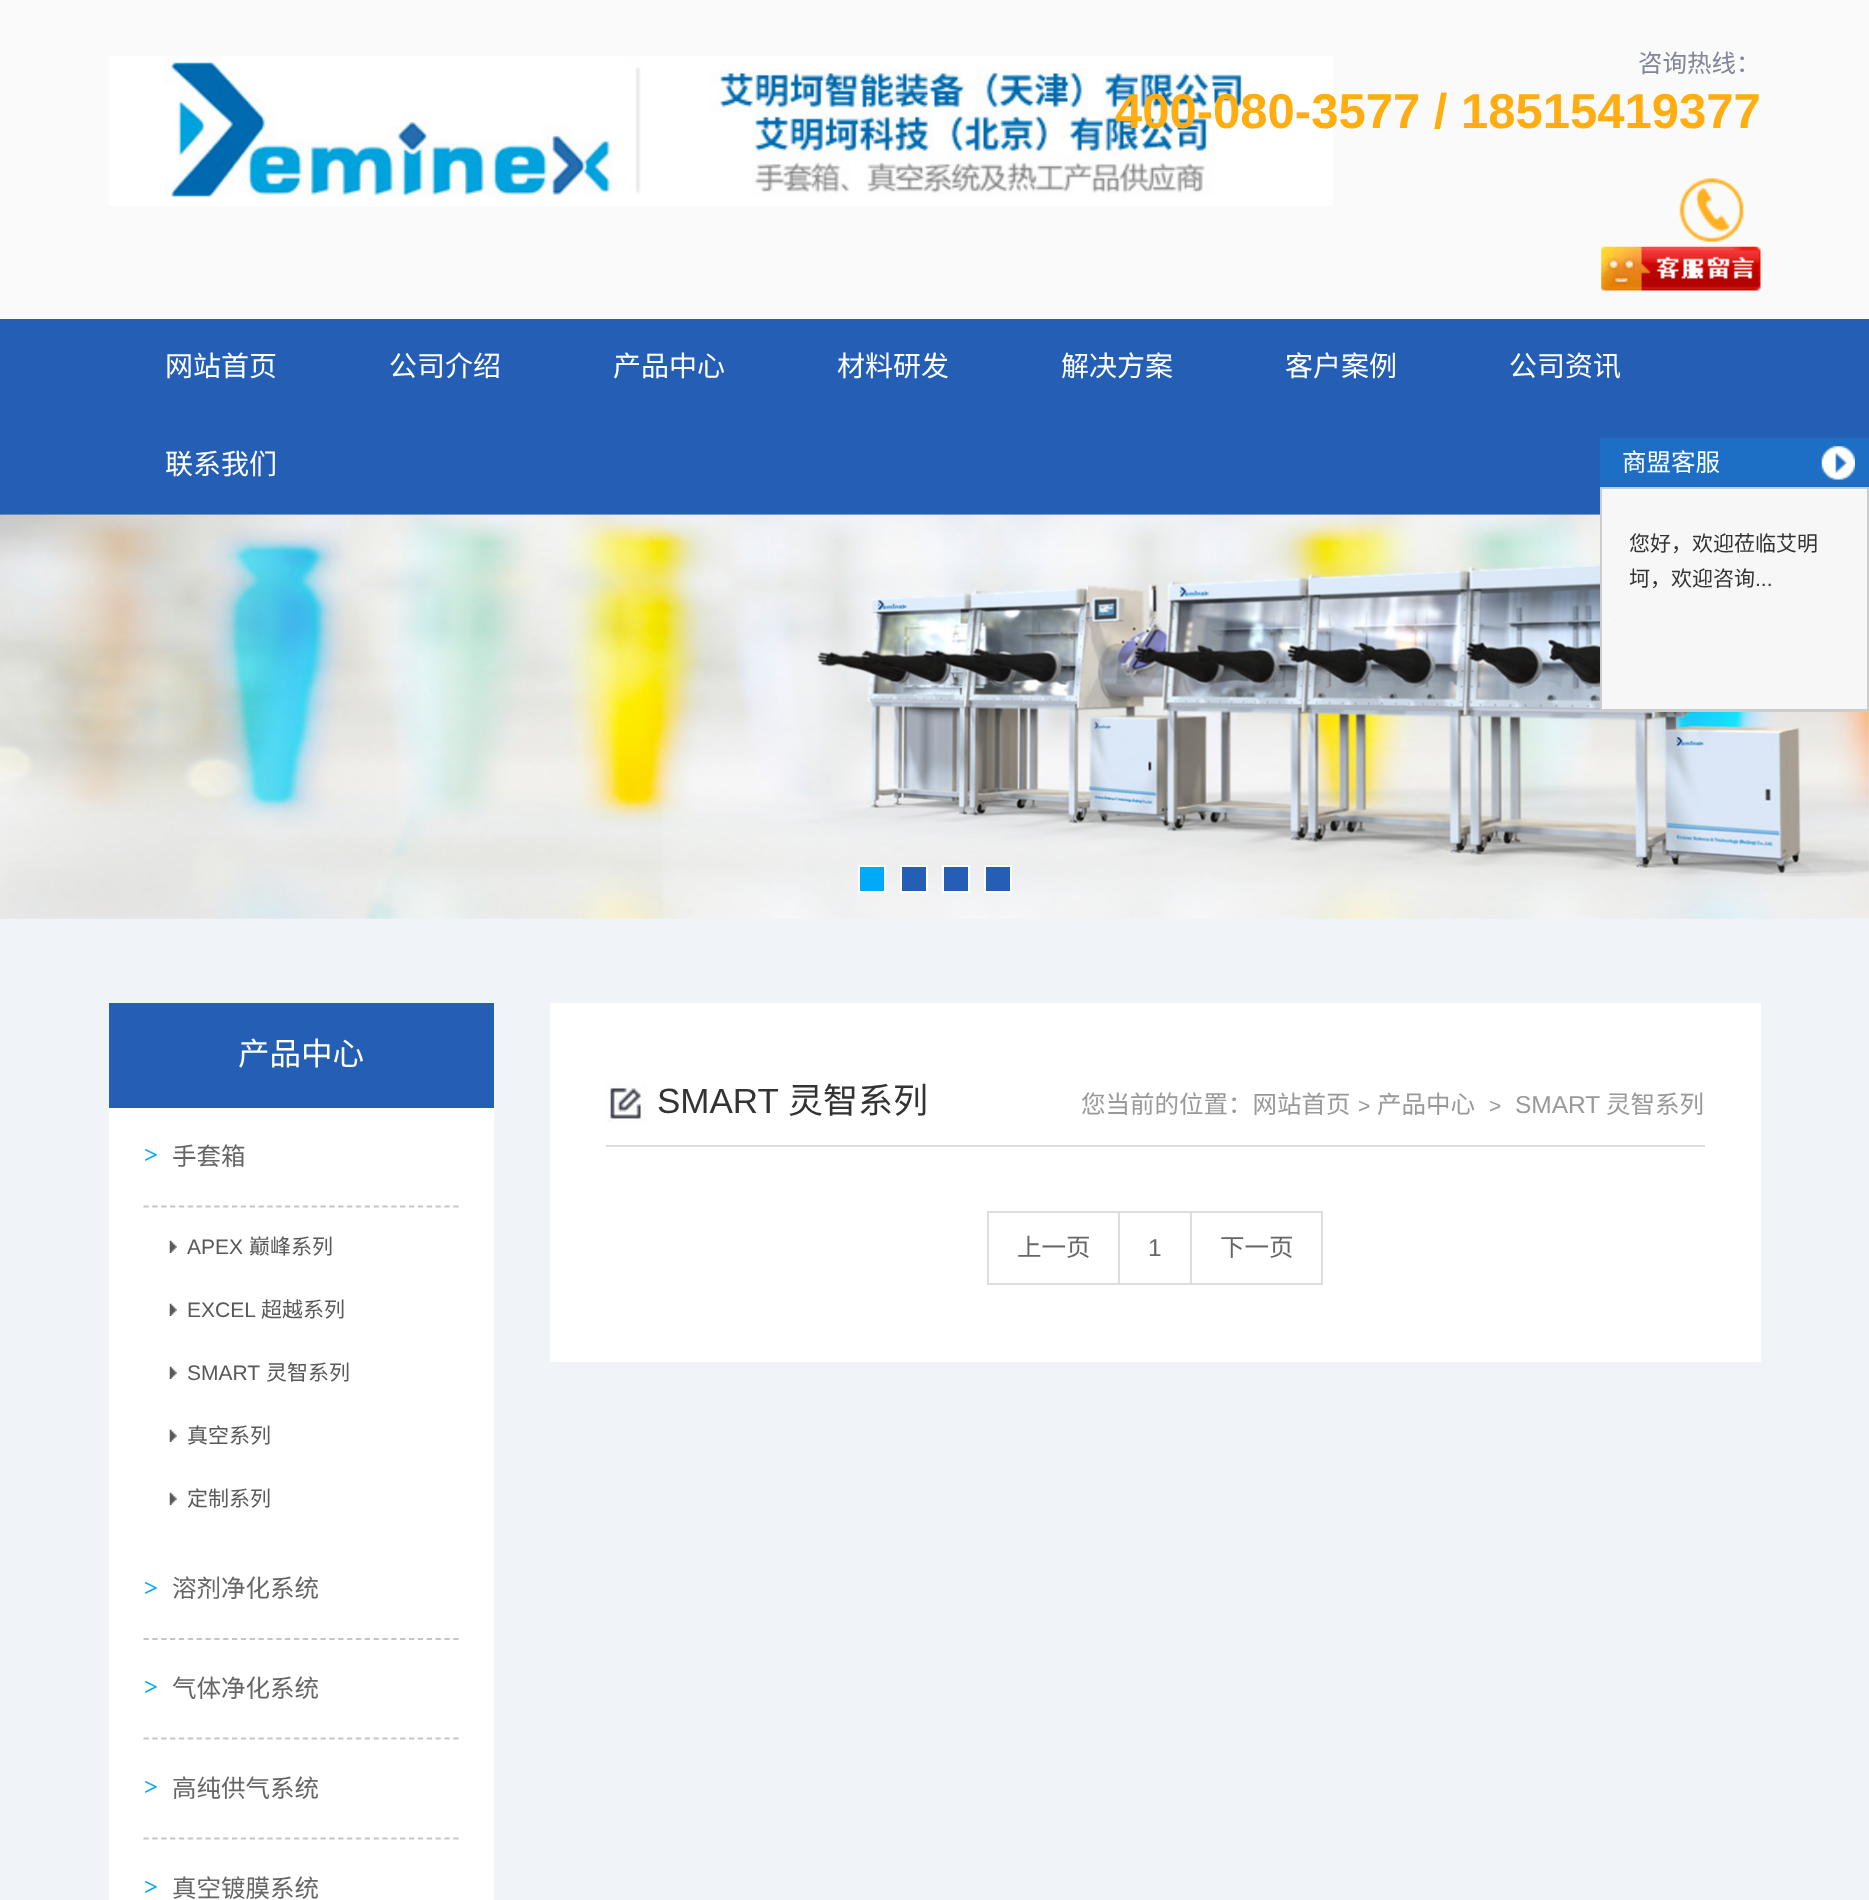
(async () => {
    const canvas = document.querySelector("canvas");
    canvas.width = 1869;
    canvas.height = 1900;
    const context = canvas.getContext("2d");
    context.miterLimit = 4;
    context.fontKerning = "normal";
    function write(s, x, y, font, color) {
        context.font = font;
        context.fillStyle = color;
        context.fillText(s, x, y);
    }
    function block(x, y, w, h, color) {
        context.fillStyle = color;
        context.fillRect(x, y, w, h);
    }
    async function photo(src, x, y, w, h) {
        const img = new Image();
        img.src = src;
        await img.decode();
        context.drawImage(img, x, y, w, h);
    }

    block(0, 0, 1869, 1900, "rgb(250, 250, 250)");
    await photo("media/1.png", 109, 56, 1224, 150);
    write("咨询热线：", 1638, 72, "24.5px Noto Sans CJK SC", "rgb(129, 135, 152)");
    write("400-080-3577 / 18515419377", 1115, 128, "bold 49px Liberation Sans", "rgb(255, 173, 16)");
    await photo("media/2.png", 1679, 178, 65, 64);
    await photo("media/3.png", 1601, 246, 160, 45);
    block(0, 319, 1869, 196, "rgb(36, 94, 181)");
    write("网站首页", 165, 376, "28px Noto Sans CJK SC", "rgb(255, 255, 255)");
    write("公司介绍", 389, 376, "28px Noto Sans CJK SC", "rgb(255, 255, 255)");
    write("产品中心", 613, 376, "28px Noto Sans CJK SC", "rgb(255, 255, 255)");
    write("材料研发", 837, 376, "28px Noto Sans CJK SC", "rgb(255, 255, 255)");
    write("解决方案", 1061, 376, "28px Noto Sans CJK SC", "rgb(255, 255, 255)");
    write("客户案例", 1285, 376, "28px Noto Sans CJK SC", "rgb(255, 255, 255)");
    write("公司资讯", 1509, 376, "28px Noto Sans CJK SC", "rgb(255, 255, 255)");
    write("联系我们", 165, 474, "28px Noto Sans CJK SC", "rgb(255, 255, 255)");
    block(1600, 438, 269, 49, "rgb(28, 111, 196)");
    write("商盟客服", 1622, 471, "24.5px Noto Sans CJK SC", "rgb(255, 255, 255)");
    await photo("media/4.png", 1821, 446, 34, 34);
    block(0, 712, 1869, 207, "rgb(239, 244, 247)");
    await photo("media/6.png", 0, 514, 1869, 405);
    block(1602, 489, 265, 220, "rgb(247, 247, 247)");
    context.strokeStyle = "rgb(204, 204, 204)";
    context.lineWidth = 2;
    context.strokeRect(1601, 488, 267, 223);
    block(1601, 709, 266, 1, "rgb(204, 204, 204)");
    await photo("media/5.png", 1608, 619, 2, 2);
    write("您好，欢迎莅临艾明", 1629, 551, "21px Noto Sans CJK SC", "rgb(51, 51, 51)");
    write("坷，欢迎咨询", 1629, 586, "21px Noto Sans CJK SC", "rgb(51, 51, 51)");
    write("...", 1755, 586, "21px Liberation Sans", "rgb(51, 51, 51)");
    context.fillStyle = "rgb(0, 170, 246)";
    context.beginPath();
    context.rect(859, 866, 26, 26);
    context.fill();
    context.strokeStyle = "rgb(255, 255, 255)";
    context.stroke();
    context.fillStyle = "rgb(36, 94, 181)";
    context.beginPath();
    context.rect(901, 866, 26, 26);
    context.fill();
    context.stroke();
    context.beginPath();
    context.rect(943, 866, 26, 26);
    context.fill();
    context.stroke();
    context.beginPath();
    context.rect(985, 866, 26, 26);
    context.fill();
    context.stroke();
    block(0, 919, 1869, 981, "rgb(240, 243, 248)");
    block(109, 1003, 385, 105, "rgb(36, 94, 181)");
    write("产品中心", 238, 1065, "31.5px Noto Sans CJK SC", "rgb(255, 255, 255)");
    block(109, 1108, 385, 792, "rgb(255, 255, 255)");
    context.beginPath();
    context.moveTo(143.5, 1206.5);
    context.lineTo(458.5, 1206.5);
    context.strokeStyle = "rgb(197, 197, 197)";
    context.lineWidth = 1.8;
    context.setLineDash([5.25, 3.6]);
    context.stroke();
    write(">", 144, 1163, "bold 24.5px Liberation Serif", "rgb(0, 170, 246)");
    write("手套箱", 172, 1165, "24.5px Noto Sans CJK SC", "rgb(102, 102, 102)");
    await photo("media/7.png", 169, 1240, 8, 13);
    write("APEX", 187, 1254, "21px Liberation Sans", "rgb(89, 89, 89)");
    write("巅峰系列", 249, 1254, "21px Noto Sans CJK SC", "rgb(89, 89, 89)");
    await photo("media/7.png", 169, 1303, 8, 13);
    write("EXCEL", 187, 1317, "21px Liberation Sans", "rgb(89, 89, 89)");
    write("超越系列", 261, 1317, "21px Noto Sans CJK SC", "rgb(89, 89, 89)");
    await photo("media/7.png", 169, 1366, 8, 13);
    write("SMART", 187, 1380, "21px Liberation Sans", "rgb(89, 89, 89)");
    write("灵智系列", 266, 1380, "21px Noto Sans CJK SC", "rgb(89, 89, 89)");
    await photo("media/7.png", 169, 1429, 8, 13);
    write("真空系列", 187, 1443, "21px Noto Sans CJK SC", "rgb(89, 89, 89)");
    await photo("media/7.png", 169, 1492, 8, 13);
    write("定制系列", 187, 1506, "21px Noto Sans CJK SC", "rgb(89, 89, 89)");
    context.beginPath();
    context.moveTo(143.5, 1639);
    context.lineTo(458.5, 1639);
    context.stroke();
    write(">", 144, 1596, "bold 24.5px Liberation Serif", "rgb(0, 170, 246)");
    write("溶剂净化系统", 172, 1597, "24.5px Noto Sans CJK SC", "rgb(102, 102, 102)");
    context.beginPath();
    context.moveTo(143.5, 1738.5);
    context.lineTo(458.5, 1738.5);
    context.stroke();
    write(">", 144, 1695, "bold 24.5px Liberation Serif", "rgb(0, 170, 246)");
    write("气体净化系统", 172, 1697, "24.5px Noto Sans CJK SC", "rgb(102, 102, 102)");
    context.beginPath();
    context.moveTo(143.5, 1838.5);
    context.lineTo(458.5, 1838.5);
    context.stroke();
    write(">", 144, 1795, "bold 24.5px Liberation Serif", "rgb(0, 170, 246)");
    write("高纯供气系统", 172, 1797, "24.5px Noto Sans CJK SC", "rgb(102, 102, 102)");
    write(">", 144, 1895, "bold 24.5px Liberation Serif", "rgb(0, 170, 246)");
    write("真空镀膜系统", 172, 1897, "24.5px Noto Sans CJK SC", "rgb(102, 102, 102)");
    block(550, 1003, 1211, 359, "rgb(255, 255, 255)");
    block(606, 1145, 1099, 2, "rgb(221, 221, 221)");
    await photo("media/8.png", 606, 1081, 42, 43);
    write("SMART", 657, 1113, "35px Liberation Sans", "rgb(51, 51, 51)");
    write("灵智系列", 788, 1113, "35px Noto Sans CJK SC", "rgb(51, 51, 51)");
    write("您当前的位置：网站首页", 1081, 1113, "24.5px Noto Sans CJK SC", "rgb(153, 153, 153)");
    write(">", 1358, 1113, "21px Liberation Sans", "rgb(153, 153, 153)");
    write("产品中心", 1377, 1113, "24.5px Noto Sans CJK SC", "rgb(153, 153, 153)");
    write(">", 1489, 1113, "21px Liberation Sans", "rgb(153, 153, 153)");
    write("SMART", 1515, 1113, "24.5px Liberation Sans", "rgb(153, 153, 153)");
    write("灵智系列", 1606, 1113, "24.5px Noto Sans CJK SC", "rgb(153, 153, 153)");
    context.strokeStyle = "rgb(221, 221, 221)";
    context.lineWidth = 2;
    context.setLineDash([]);
    context.strokeRect(988, 1212, 131, 72);
    write("上一页", 1017, 1256, "24.5px Noto Sans CJK SC", "rgb(102, 102, 102)");
    block(1120, 1211, 203, 2, "rgb(221, 221, 221)");
    block(1190, 1211, 2, 74, "rgb(221, 221, 221)");
    block(1120, 1283, 72, 2, "rgb(221, 221, 221)");
    write("1", 1148, 1256, "24.5px Liberation Sans", "rgb(102, 102, 102)");
    block(1321, 1211, 2, 74, "rgb(221, 221, 221)");
    block(1192, 1283, 131, 2, "rgb(221, 221, 221)");
    write("下一页", 1220, 1256, "24.5px Noto Sans CJK SC", "rgb(102, 102, 102)");
})();
